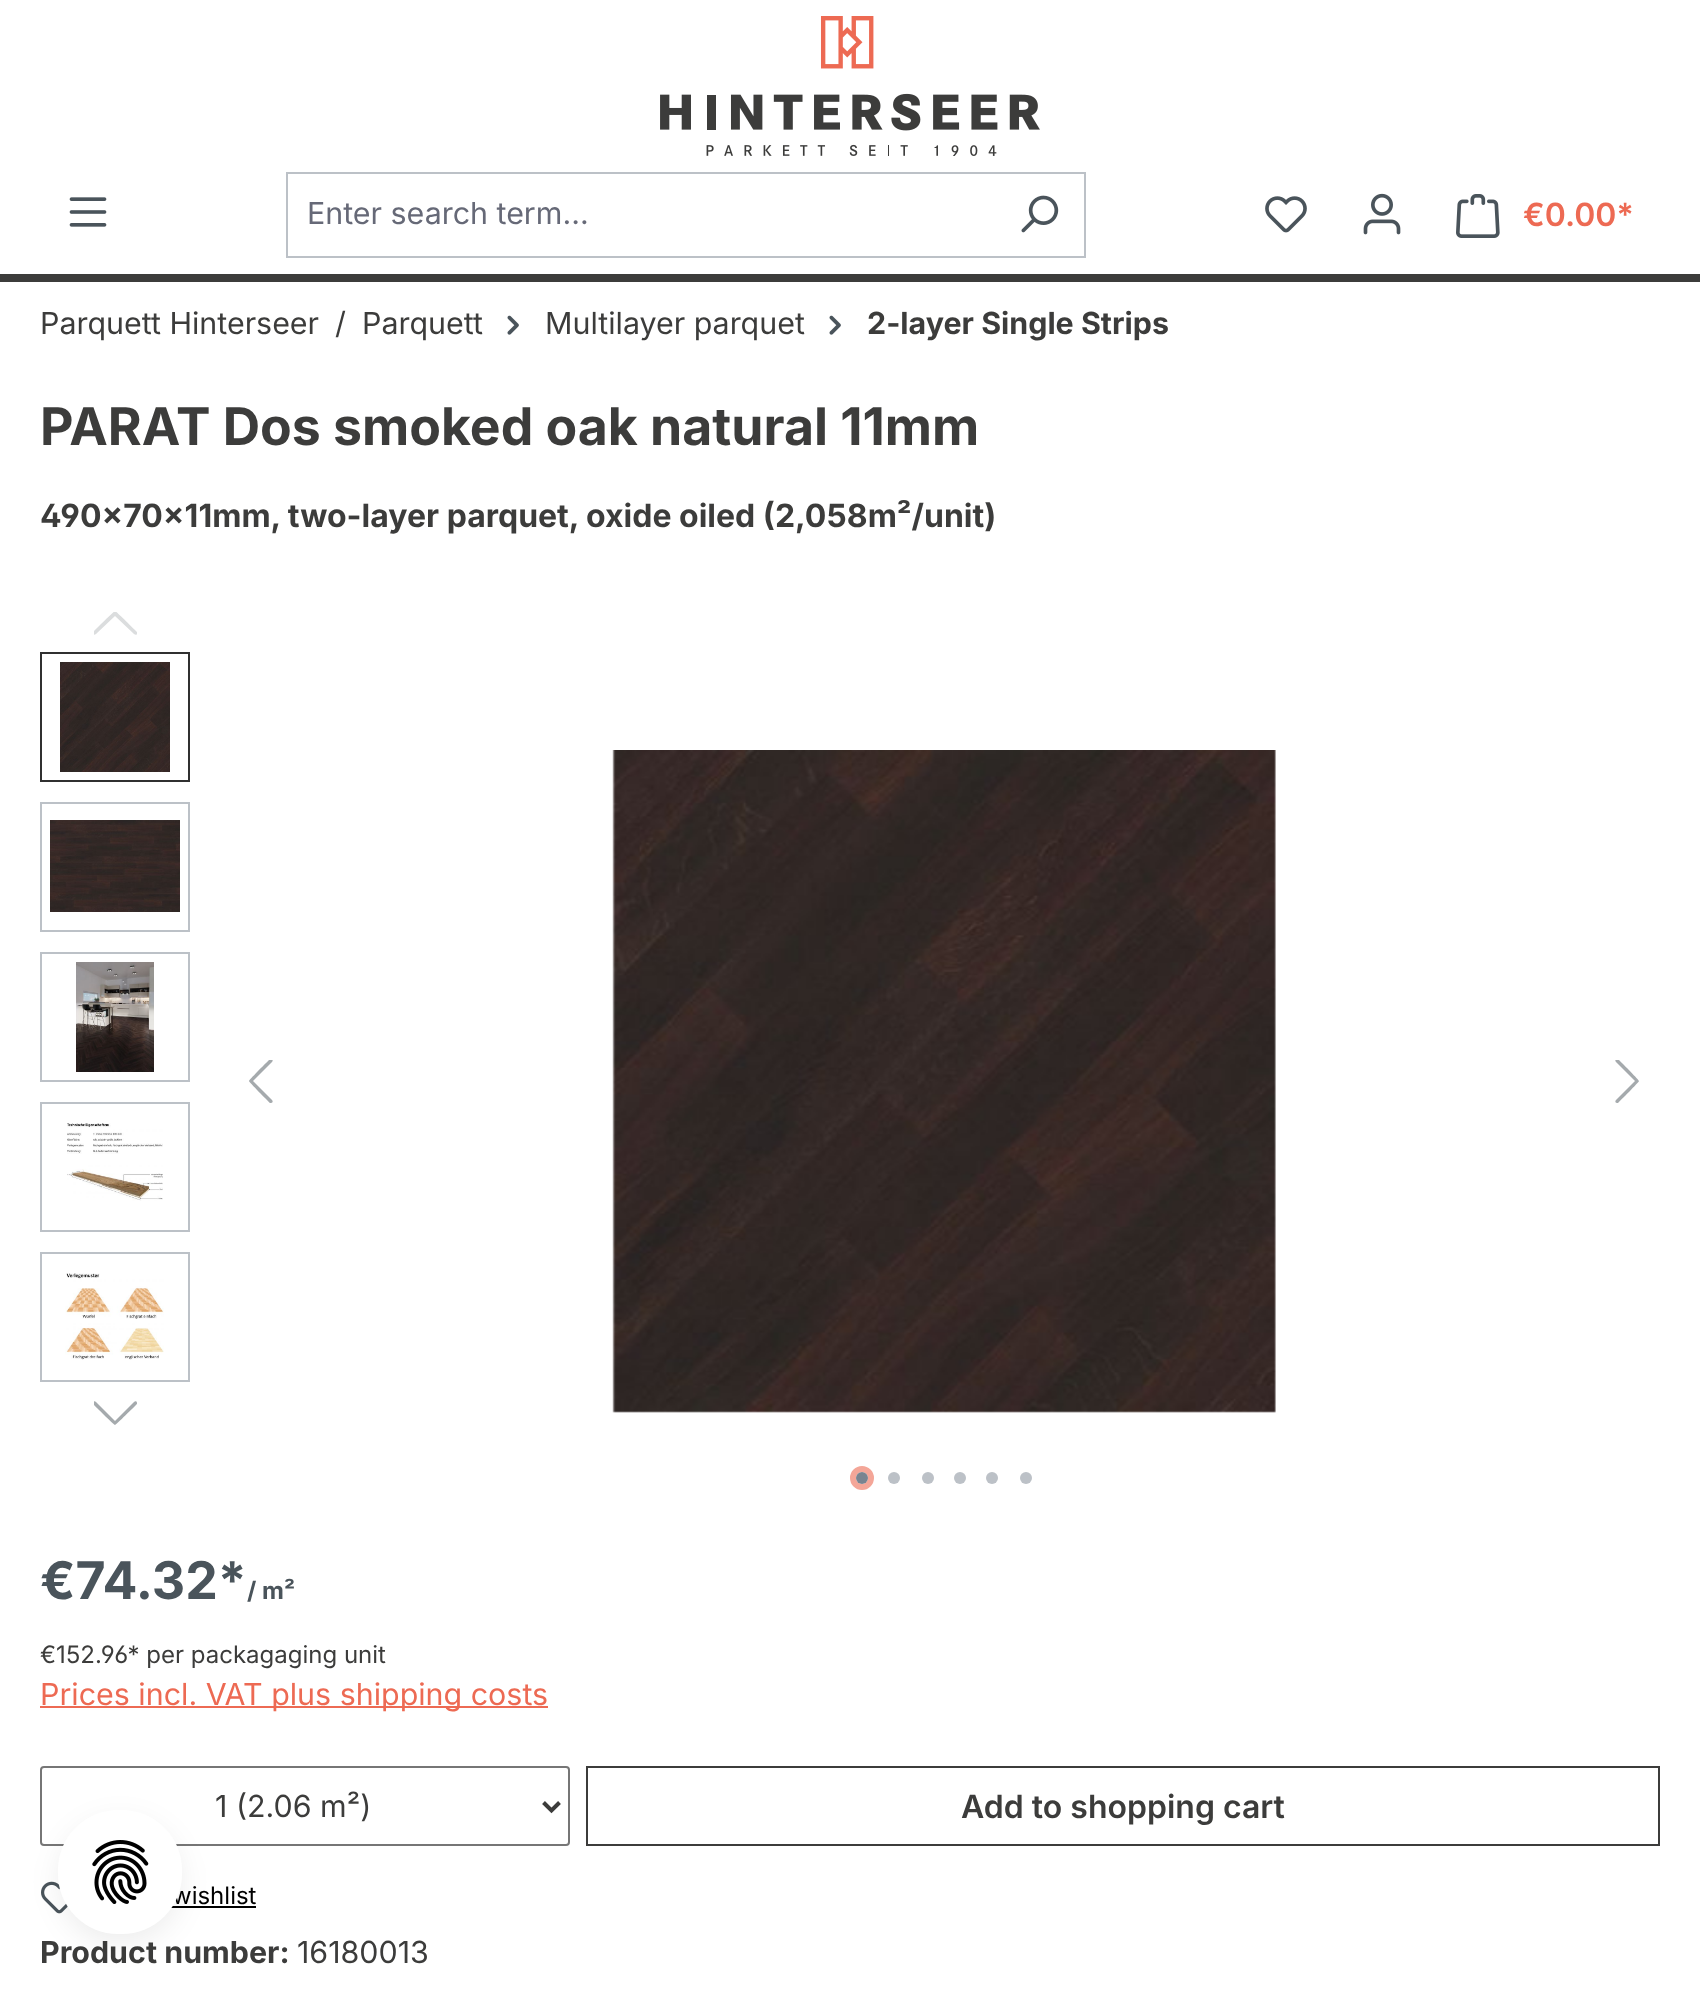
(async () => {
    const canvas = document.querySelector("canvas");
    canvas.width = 1700;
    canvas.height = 1991;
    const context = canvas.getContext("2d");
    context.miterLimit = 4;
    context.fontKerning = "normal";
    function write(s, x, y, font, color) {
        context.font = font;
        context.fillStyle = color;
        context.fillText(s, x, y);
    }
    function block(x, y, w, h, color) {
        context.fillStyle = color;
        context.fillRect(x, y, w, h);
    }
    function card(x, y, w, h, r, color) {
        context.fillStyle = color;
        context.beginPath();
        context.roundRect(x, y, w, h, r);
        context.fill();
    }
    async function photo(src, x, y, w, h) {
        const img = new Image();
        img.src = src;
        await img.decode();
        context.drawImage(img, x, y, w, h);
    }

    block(0, 0, 1700, 1991, "rgb(255, 255, 255)");
    block(0, 274, 1700, 8, "rgb(60, 60, 59)");
    await photo("media/1.png", 660, 16, 380, 140);
    await photo("media/2.png", 69, 197, 38, 30);
    block(286, 172, 800, 2, "rgb(188, 193, 199)");
    block(286, 256, 708, 2, "rgb(188, 193, 199)");
    block(286, 172, 2, 86, "rgb(188, 193, 199)");
    write("Enter search term...", 307, 224, "30.4px Inter", "rgb(102, 105, 119)");
    block(1084, 172, 2, 86, "rgb(188, 193, 199)");
    block(992, 256, 94, 2, "rgb(188, 193, 199)");
    await photo("media/3.png", 1021, 195, 38, 38);
    await photo("media/4.png", 1265, 196, 42, 37);
    await photo("media/5.png", 1363, 193, 38, 42);
    await photo("media/6.png", 1456, 194, 44, 44);
    write("€0.00*", 1523, 226, "600 32px Inter", "rgb(237, 106, 83)");
    write("Parquett Hinterseer", 40, 334, "30.4px Inter", "rgb(60, 60, 59)");
    write("/", 335, 334, "30.4px Inter", "rgb(60, 60, 59)");
    write("Parquett", 362, 334, "30.4px Inter", "rgb(60, 60, 59)");
    await photo("media/7.png", 507, 315, 12, 20);
    write("Multilayer parquet", 545, 334, "30.4px Inter", "rgb(60, 60, 59)");
    await photo("media/7.png", 829, 315, 12, 20);
    write("2-layer Single Strips", 867, 334, "bold 30.4px Inter", "rgb(60, 60, 59)");
    write("PARAT Dos smoked oak natural 11mm", 40, 445, "bold 51.75px Inter", "rgb(60, 60, 59)");
    write("490x70x11mm, two-layer parquet,", 40, 527, "bold 32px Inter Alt", "rgb(60, 60, 59)");
    write("oxide oiled (2,058m²/unit)", 586, 527, "bold 32px Inter", "rgb(60, 60, 59)");
    context.save();
    context.beginPath();
    context.rect(94, 612, 44, 34);
    context.clip();
    context.fillStyle = "rgb(219, 221, 222)";
    context.beginPath();
    context.moveTo(115, 616);
    context.lineTo(134, 634);
    context.bezierCurveTo(135, 635, 137, 635, 137, 634);
    context.lineTo(137, 632);
    context.bezierCurveTo(135, 630, 116, 611, 115, 611);
    context.bezierCurveTo(114, 611, 95, 630, 93, 632);
    context.lineTo(93, 634);
    context.bezierCurveTo(93, 635, 95, 635, 96, 634);
    context.closePath();
    context.fill("evenodd");
    context.restore();
    context.save();
    context.beginPath();
    context.rect(94, 1392, 44, 44);
    context.clip();
    context.fillStyle = "rgb(165, 170, 173)";
    context.beginPath();
    context.moveTo(115, 1421);
    context.lineTo(134, 1402);
    context.bezierCurveTo(135, 1401, 137, 1401, 137, 1403);
    context.lineTo(137, 1404);
    context.bezierCurveTo(135, 1406, 116, 1425, 115, 1425);
    context.bezierCurveTo(114, 1425, 95, 1406, 93, 1404);
    context.lineTo(93, 1403);
    context.bezierCurveTo(93, 1401, 95, 1401, 96, 1402);
    context.closePath();
    context.fill("evenodd");
    context.restore();
    context.strokeStyle = "rgb(48, 48, 48)";
    context.lineWidth = 2;
    context.strokeRect(41, 653, 148, 128);
    await photo("media/8.png", 60, 662, 110, 110);
    context.strokeStyle = "rgb(188, 193, 199)";
    context.strokeRect(41, 803, 148, 128);
    await photo("media/9.png", 50, 820, 130, 92);
    context.strokeRect(41, 953, 148, 128);
    await photo("media/10.png", 76, 962, 78, 110);
    context.strokeRect(41, 1103, 148, 128);
    await photo("media/11.png", 67, 1123, 96, 78);
    context.strokeRect(41, 1253, 148, 128);
    await photo("media/12.png", 65, 1273, 99, 87);
    await photo("media/13.png", 612, 750, 664, 663);
    context.save();
    context.beginPath();
    context.rect(238, 1060, 44, 44);
    context.clip();
    context.fillStyle = "rgb(165, 170, 173)";
    context.beginPath();
    context.moveTo(253, 1081);
    context.lineTo(272, 1100);
    context.bezierCurveTo(273, 1101, 273, 1103, 271, 1103);
    context.lineTo(270, 1103);
    context.bezierCurveTo(268, 1101, 249, 1082, 249, 1081);
    context.bezierCurveTo(249, 1080, 268, 1061, 270, 1059);
    context.lineTo(271, 1059);
    context.bezierCurveTo(273, 1059, 273, 1061, 272, 1062);
    context.closePath();
    context.fill("evenodd");
    context.restore();
    context.save();
    context.beginPath();
    context.rect(1606, 1060, 44, 44);
    context.clip();
    context.fillStyle = "rgb(165, 170, 173)";
    context.beginPath();
    context.moveTo(1635, 1081);
    context.lineTo(1616, 1100);
    context.bezierCurveTo(1615, 1101, 1615, 1103, 1617, 1103);
    context.lineTo(1618, 1103);
    context.bezierCurveTo(1620, 1101, 1639, 1082, 1639, 1081);
    context.bezierCurveTo(1639, 1080, 1620, 1061, 1618, 1059);
    context.lineTo(1617, 1059);
    context.bezierCurveTo(1615, 1059, 1615, 1061, 1616, 1062);
    context.closePath();
    context.fill("evenodd");
    context.restore();
    context.beginPath();
    context.arc(862, 1478, 9, 0, Math.PI * 2);
    context.strokeStyle = "rgb(244, 166, 152)";
    context.lineWidth = 6;
    context.stroke();
    context.fillStyle = "rgb(121, 132, 144)";
    context.beginPath();
    context.arc(862, 1478, 6, 0, Math.PI * 2);
    context.fill();
    context.fillStyle = "rgb(188, 193, 199)";
    context.beginPath();
    context.arc(894, 1478, 6, 0, Math.PI * 2);
    context.fill();
    context.beginPath();
    context.arc(928, 1478, 6, 0, Math.PI * 2);
    context.fill();
    context.beginPath();
    context.arc(960, 1478, 6, 0, Math.PI * 2);
    context.fill();
    context.beginPath();
    context.arc(992, 1478, 6, 0, Math.PI * 2);
    context.fill();
    context.beginPath();
    context.arc(1026, 1478, 6, 0, Math.PI * 2);
    context.fill();
    write("€74.32*", 40, 1599, "bold 51.75px Inter", "rgb(74, 84, 91)");
    write("/ m²", 247, 1599, "bold 24px Inter", "rgb(74, 84, 91)");
    write("€152.96* per packagaging unit", 40, 1663, "24px Inter Alt", "rgb(60, 60, 59)");
    block(40, 1706, 508, 2, "rgb(237, 106, 83)");
    write("Prices incl. VAT plus shipping costs", 40, 1705, "30.4px Inter", "rgb(237, 106, 83)");
    context.beginPath();
    context.roundRect(41, 1767, 528, 78, 3);
    context.strokeStyle = "rgb(118, 118, 118)";
    context.lineWidth = 2;
    context.stroke();
    context.beginPath();
    context.moveTo(543.5, 1802.5);
    context.lineTo(551.5, 1810.5);
    context.lineTo(559.5, 1802.5);
    context.strokeStyle = "rgb(60, 60, 59)";
    context.lineWidth = 4;
    context.stroke();
    write("1 (2.06 m²)", 215, 1817, "30.4px Inter", "rgb(60, 60, 59)");
    context.lineWidth = 2;
    context.strokeRect(587, 1767, 1072, 78);
    write("Add to shopping cart", 961, 1818, "600 32px Inter", "rgb(60, 60, 59)");
    await photo("media/14.png", 41, 1881, 27, 33);
    write("wishlist", 172, 1904, "24px Inter", "rgb(0, 0, 0)");
    block(171, 1906, 85, 2, "rgb(0, 0, 0)");
    write("Product number:", 40, 1963, "bold 30.4px Inter", "rgb(60, 60, 59)");
    write("16180013", 297, 1963, "30.4px Inter", "rgb(60, 60, 59)");
    context.fillStyle = "rgba(0, 0, 0, 0.08)";
    context.filter = "blur(15px)";
    context.beginPath();
    context.roundRect(60, 1822, 120, 120, 60);
    context.fill();
    context.filter = "none";
    card(58, 1810, 124, 124, 60, "rgb(255, 255, 255)");
    await photo("media/15.png", 92, 1840, 57, 64);
})();
